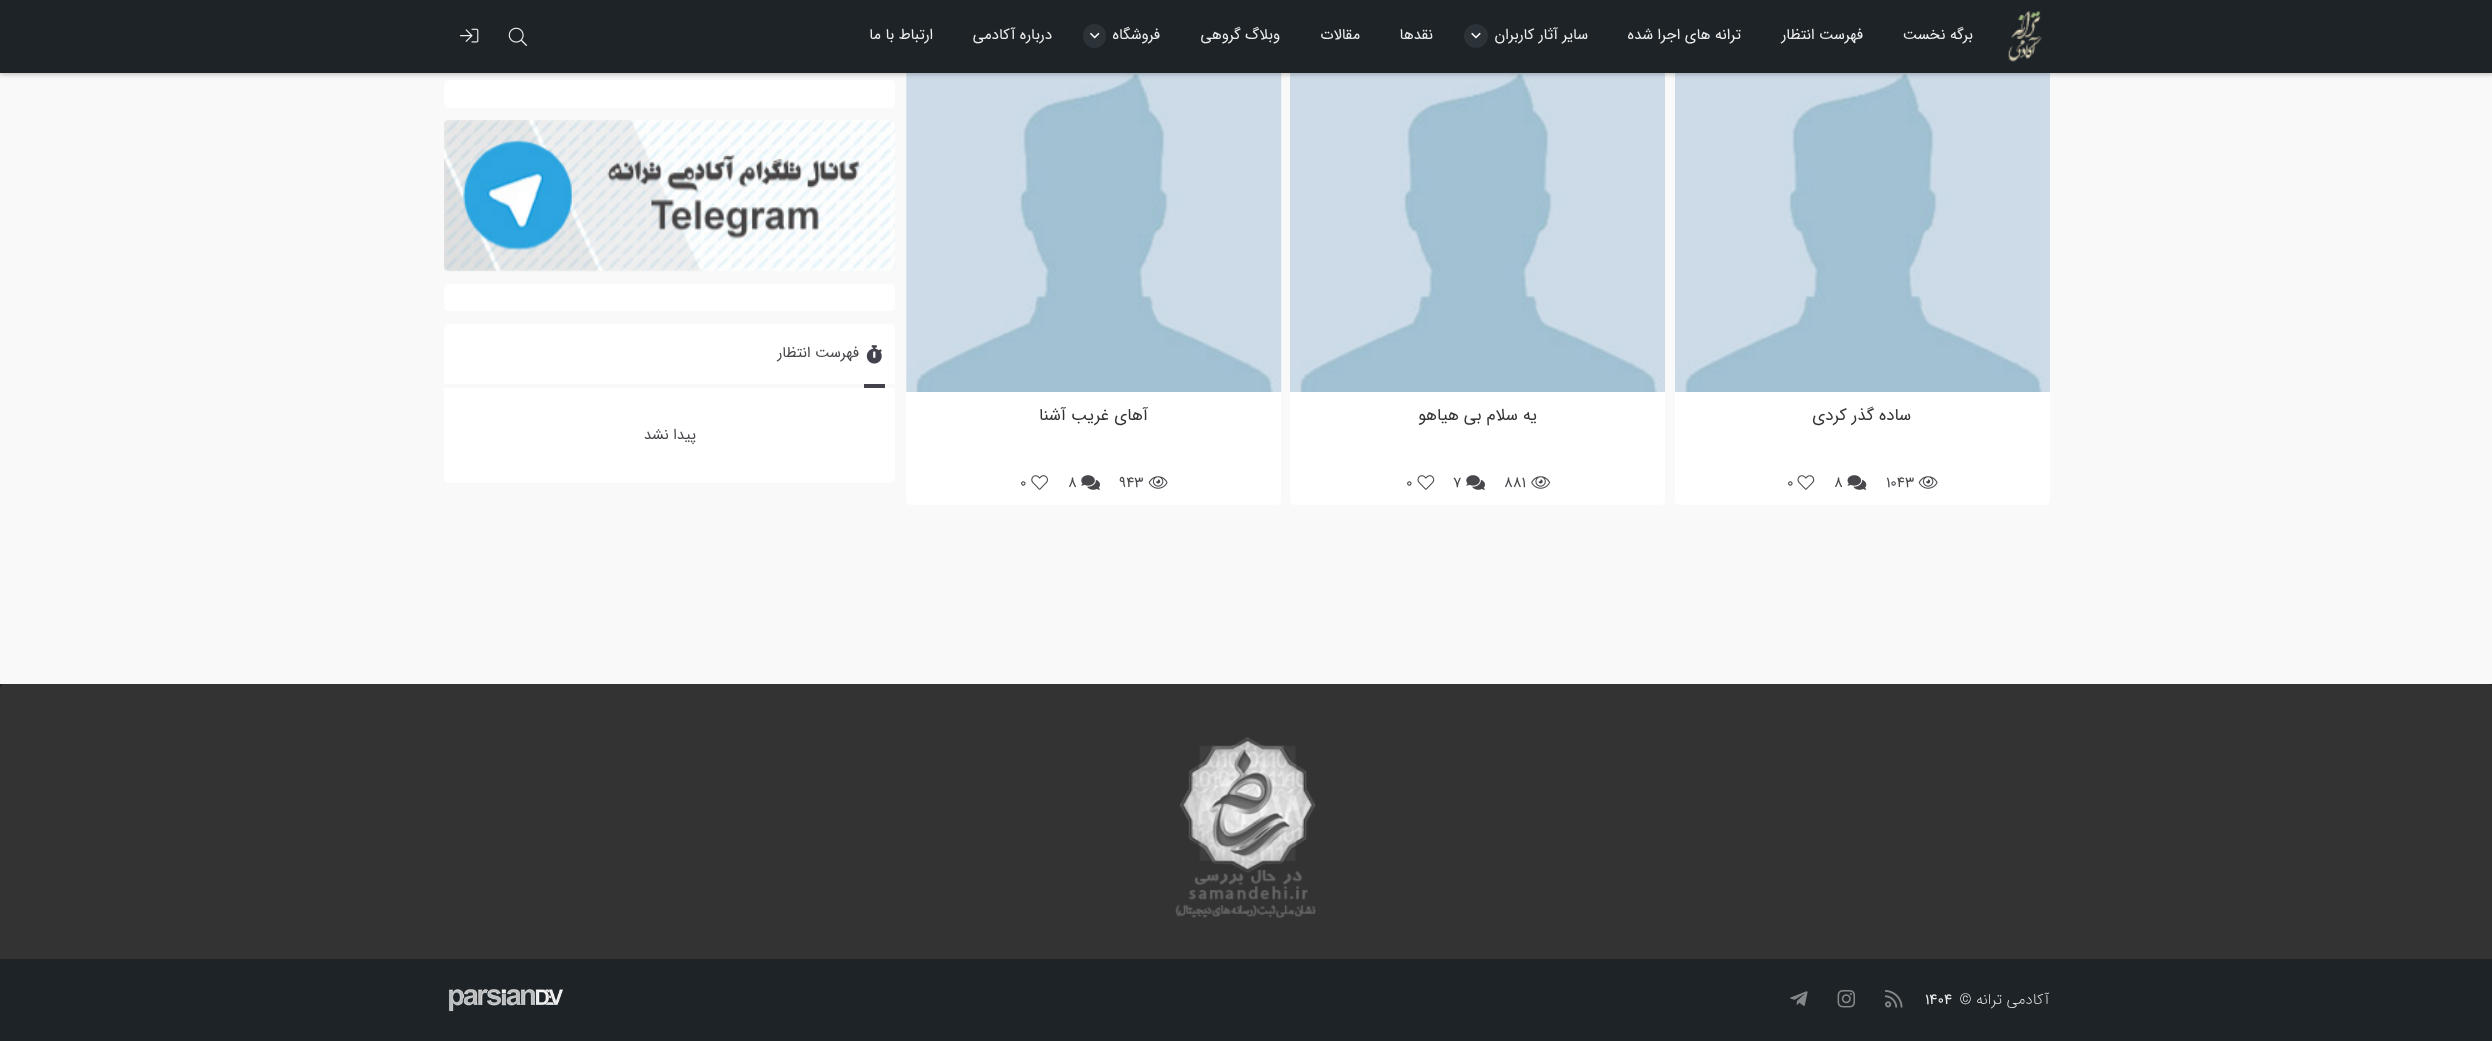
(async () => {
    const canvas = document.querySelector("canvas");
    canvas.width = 2492;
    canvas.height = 1041;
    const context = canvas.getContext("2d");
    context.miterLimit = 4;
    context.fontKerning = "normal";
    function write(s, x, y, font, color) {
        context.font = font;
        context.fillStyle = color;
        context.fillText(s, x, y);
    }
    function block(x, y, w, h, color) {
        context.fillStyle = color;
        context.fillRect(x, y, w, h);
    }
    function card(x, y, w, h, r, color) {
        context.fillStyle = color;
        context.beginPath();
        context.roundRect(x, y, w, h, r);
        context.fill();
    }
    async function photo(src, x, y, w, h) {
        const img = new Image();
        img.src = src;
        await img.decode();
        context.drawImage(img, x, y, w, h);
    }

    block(0, 0, 2492, 1041, "rgb(249, 249, 249)");
    card(1675, 16, 375, 489, 5, "rgb(255, 255, 255)");
    await photo("media/6.png", 1675, 73, 375, 319);
    card(1290, 16, 375, 489, 5, "rgb(255, 255, 255)");
    await photo("media/6.png", 1290, 73, 375, 319);
    card(906, 16, 375, 489, 5, "rgb(255, 255, 255)");
    await photo("media/12.png", 906, 73, 376, 319);
    card(444, 80, 451, 28, 5, "rgb(255, 255, 255)");
    context.fillStyle = "rgba(0, 0, 0, 0.2)";
    context.filter = "blur(2px)";
    context.beginPath();
    context.rect(0, 3, 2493, 72);
    context.fill();
    context.filter = "none";
    block(0, 0, 2492, 73, "rgb(29, 35, 39)");
    await photo("media/1.png", 2007, 11, 35, 51);
    context.direction = "rtl";
    write("برگه نخست", 1973, 39, "15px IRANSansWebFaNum", "rgb(238, 238, 238)");
    write("فهرست انتظار", 1863, 39, "15px IRANSansWebFaNum", "rgb(238, 238, 238)");
    write("ترانه های اجرا شده", 1741, 39, "15px IRANSansWebFaNum", "rgb(238, 238, 238)");
    write("سایر آثار کاربران", 1588, 39, "15px IRANSansWebFaNum", "rgb(238, 238, 238)");
    context.fillStyle = "rgb(44, 51, 56)";
    context.beginPath();
    context.arc(1476, 36, 12, 0, Math.PI * 2);
    context.fill();
    await photo("media/2.png", 1471, 32, 10, 7);
    write("نقدها", 1433, 39, "15px IRANSansWebFaNum", "rgb(238, 238, 238)");
    write("مقالات", 1360, 39, "15px IRANSansWebFaNum", "rgb(238, 238, 238)");
    write("وبلاگ گروهی", 1280, 39, "15px IRANSansWebFaNum", "rgb(238, 238, 238)");
    write("فروشگاه", 1160, 39, "15px IRANSansWebFaNum", "rgb(238, 238, 238)");
    card(1083, 24, 23, 24, 11.5, "rgb(44, 51, 56)");
    await photo("media/3.png", 1090, 32, 10, 7);
    write("درباره آکادمی", 1052, 39, "15px IRANSansWebFaNum", "rgb(238, 238, 238)");
    write("ارتباط با ما", 933, 39, "15px IRANSansWebFaNum", "rgb(238, 238, 238)");
    await photo("media/4.png", 508, 27, 19, 19);
    await photo("media/5.png", 460, 28, 19, 15);
    write("ساده گذر کردی", 1911, 420, "16.75px IRANSansWebFaNum", "rgb(51, 51, 51)");
    await photo("media/7.png", 1918, 476, 20, 13);
    context.direction = "ltr";
    write("۱۰۴۳", 1886, 487, "15px IRANSansWebFaNum", "rgb(71, 71, 76)");
    await photo("media/8.png", 1847, 475, 20, 15);
    write("۸", 1834, 487, "15px IRANSansWebFaNum", "rgb(71, 71, 76)");
    await photo("media/9.png", 1797, 475, 18, 15);
    write("0", 1787, 487, "15px IRANSansWebFaNum", "rgb(71, 71, 76)");
    context.direction = "rtl";
    write("یه سلام بی هیاهو", 1537, 420, "16.75px IRANSansWebFaNum", "rgb(51, 51, 51)");
    await photo("media/10.png", 1531, 476, 19, 13);
    context.direction = "ltr";
    write("۸۸۱", 1504, 487, "15px IRANSansWebFaNum", "rgb(71, 71, 76)");
    await photo("media/11.png", 1466, 475, 19, 15);
    write("۷", 1453, 487, "15px IRANSansWebFaNum", "rgb(71, 71, 76)");
    await photo("media/9.png", 1417, 475, 18, 15);
    write("0", 1406, 487, "15px IRANSansWebFaNum", "rgb(71, 71, 76)");
    context.direction = "rtl";
    write("آهای غریب آشنا", 1148, 420, "16.75px IRANSansWebFaNum", "rgb(51, 51, 51)");
    await photo("media/7.png", 1148, 476, 20, 13);
    context.direction = "ltr";
    write("۹۴۳", 1119, 487, "15px IRANSansWebFaNum", "rgb(71, 71, 76)");
    await photo("media/11.png", 1081, 475, 19, 15);
    write("۸", 1068, 487, "15px IRANSansWebFaNum", "rgb(71, 71, 76)");
    await photo("media/13.png", 1031, 475, 17, 15);
    write("0", 1020, 487, "15px IRANSansWebFaNum", "rgb(71, 71, 76)");
    await photo("media/14.png", 444, 120, 451, 152);
    card(444, 284, 451, 27, 5, "rgb(255, 255, 255)");
    card(444, 324, 451, 159, 5, "rgb(255, 255, 255)");
    block(444, 384, 451, 4, "rgb(249, 249, 249)");
    block(864, 384, 21, 4, "rgb(66, 66, 76)");
    await photo("media/15.png", 866, 345, 16, 19);
    context.direction = "rtl";
    write("فهرست انتظار", 859, 357, "15px IRANSansWebFaNum", "rgb(71, 71, 76)");
    write("پیدا نشد", 696, 439, "15px IRANSansWebFaNum", "rgb(71, 71, 76)");
    block(0, 684, 2492, 357, "rgb(29, 35, 39)");
    context.fillStyle = "rgb(51, 51, 51)";
    context.beginPath();
    context.moveTo(5, 684);
    context.lineTo(2488, 684);
    context.bezierCurveTo(2491, 684, 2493, 686, 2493, 689);
    context.lineTo(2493, 959);
    context.lineTo(0, 959);
    context.lineTo(0, 689);
    context.bezierCurveTo(0, 686, 2, 684, 5, 684);
    context.closePath();
    context.fill();
    await photo("media/16.png", 1175, 737, 141, 181);
    write("آکادمی ترانه ©", 2049, 1004, "200 15px IRANSansWebFaNum", "rgb(238, 238, 238)");
    context.direction = "ltr";
    write("۱۴۰۴", 1925, 1004, "15px IRANSansWebFaNum", "rgb(238, 238, 238)");
    await photo("media/17.png", 1885, 990, 18, 18);
    await photo("media/18.png", 1837, 990, 18, 18);
    await photo("media/19.png", 1790, 991, 18, 15);
    await photo("media/20.png", 448, 989, 115, 23);
})();
